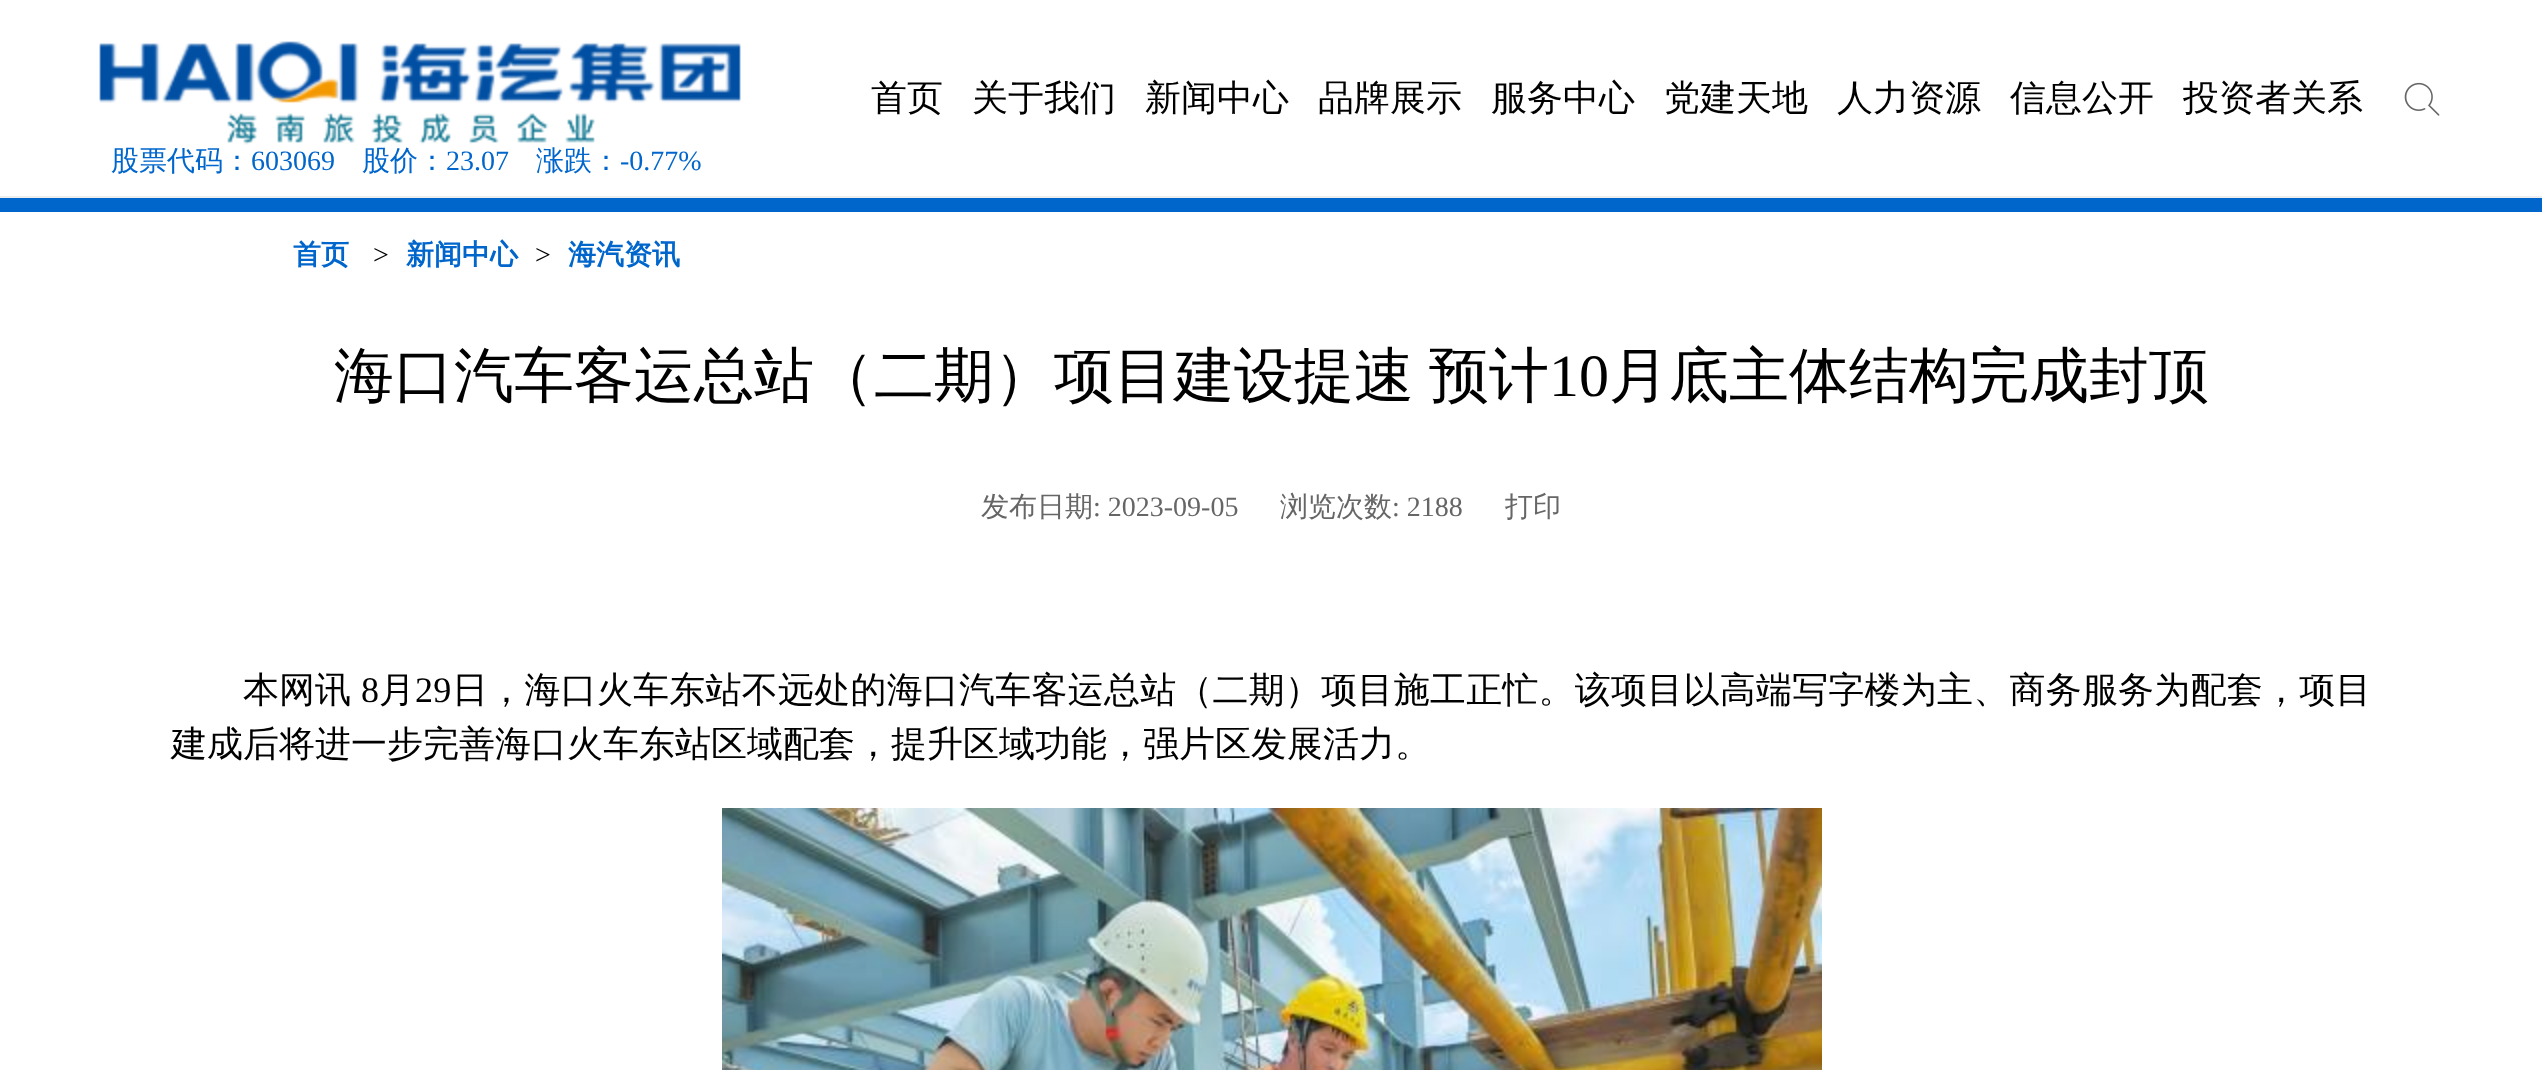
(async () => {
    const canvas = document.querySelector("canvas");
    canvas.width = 2542;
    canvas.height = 1070;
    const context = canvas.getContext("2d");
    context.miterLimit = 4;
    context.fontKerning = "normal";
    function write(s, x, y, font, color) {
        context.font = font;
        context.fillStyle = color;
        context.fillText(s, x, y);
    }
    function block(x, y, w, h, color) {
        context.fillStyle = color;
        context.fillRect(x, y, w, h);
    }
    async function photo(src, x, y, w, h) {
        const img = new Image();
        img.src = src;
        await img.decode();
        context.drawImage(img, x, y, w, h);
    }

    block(0, 0, 2542, 1070, "rgb(255, 255, 255)");
    block(0, 196, 2542, 2, "rgb(238, 238, 238)");
    await photo("media/1.png", 99, 41, 642, 104);
    write("首页", 871, 110, "500 36px WenQuanYi Zen Hei", "rgb(0, 0, 0)");
    write("关于我们", 972, 110, "500 36px WenQuanYi Zen Hei", "rgb(0, 0, 0)");
    write("新闻中心", 1145, 110, "500 36px WenQuanYi Zen Hei", "rgb(0, 0, 0)");
    write("品牌展示", 1318, 110, "500 36px WenQuanYi Zen Hei", "rgb(0, 0, 0)");
    write("服务中心", 1491, 110, "500 36px WenQuanYi Zen Hei", "rgb(0, 0, 0)");
    write("党建天地", 1664, 110, "500 36px WenQuanYi Zen Hei", "rgb(0, 0, 0)");
    write("人力资源", 1837, 110, "500 36px WenQuanYi Zen Hei", "rgb(0, 0, 0)");
    write("信息公开", 2010, 110, "500 36px WenQuanYi Zen Hei", "rgb(0, 0, 0)");
    write("投资者关系", 2183, 110, "500 36px WenQuanYi Zen Hei", "rgb(0, 0, 0)");
    await photo("media/2.png", 2404, 82, 36, 34);
    write("股票代码：", 111, 170, "500 28px WenQuanYi Zen Hei", "rgb(0, 102, 204)");
    write("603069", 251, 170, "28px Liberation Serif", "rgb(0, 102, 204)");
    write("股价：", 362, 170, "500 28px WenQuanYi Zen Hei", "rgb(0, 102, 204)");
    write("23.07", 446, 170, "28px Liberation Serif", "rgb(0, 102, 204)");
    write("涨跌：", 536, 170, "500 28px WenQuanYi Zen Hei", "rgb(0, 102, 204)");
    write("-0.77%", 620, 170, "28px Liberation Serif", "rgb(0, 102, 204)");
    block(0, 198, 2542, 14, "rgb(0, 102, 204)");
    write("首页", 293, 264, "bold 28px WenQuanYi Zen Hei", "rgb(0, 102, 204)");
    write(">", 373, 264, "28px Liberation Serif", "rgb(0, 0, 0)");
    write("新闻中心", 406, 264, "bold 28px WenQuanYi Zen Hei", "rgb(0, 102, 204)");
    write(">", 535, 264, "28px Liberation Serif", "rgb(0, 0, 0)");
    write("海汽资讯", 568, 264, "bold 28px WenQuanYi Zen Hei", "rgb(0, 102, 204)");
    context.wordSpacing = "-3px";
    write("海口汽车客运总站（二期）项目建设提速 预计", 334, 396, "500 60px WenQuanYi Zen Hei", "rgb(0, 0, 0)");
    context.wordSpacing = "0px";
    write("10", 1549, 396, "60px Liberation Serif", "rgb(0, 0, 0)");
    write("月底主体结构完成封顶", 1609, 396, "500 60px WenQuanYi Zen Hei", "rgb(0, 0, 0)");
    write("发布日期", 981, 516, "500 28px WenQuanYi Zen Hei", "rgb(102, 102, 102)");
    write(": 2023-09-05", 1093, 516, "28px Liberation Serif", "rgb(102, 102, 102)");
    write("浏览次数", 1280, 516, "500 28px WenQuanYi Zen Hei", "rgb(102, 102, 102)");
    write(": 2188", 1392, 516, "28px Liberation Serif", "rgb(102, 102, 102)");
    write("打印", 1505, 516, "500 28px WenQuanYi Zen Hei", "rgb(102, 102, 102)");
    write("本网讯", 243, 702, "500 36px WenQuanYi Zen Hei", "rgb(0, 0, 0)");
    context.letterSpacing = "0.22px";
    write("8", 361, 702, "36px Liberation Serif", "rgb(0, 0, 0)");
    write("月", 379, 702, "500 36px WenQuanYi Zen Hei", "rgb(0, 0, 0)");
    write("29", 415, 702, "36px Liberation Serif", "rgb(0, 0, 0)");
    write("日，海口火车东站不远处的海口汽车客运总站（二期）项目施工正忙。该项目以高端写字楼为主、商务服务为配套，项目", 452, 702, "500 36px WenQuanYi Zen Hei", "rgb(0, 0, 0)");
    context.letterSpacing = "0px";
    write("建成后将进一步完善海口火车东站区域配套，提升区域功能，强片区发展活力。", 171, 756, "500 36px WenQuanYi Zen Hei", "rgb(0, 0, 0)");
    await photo("media/3.png", 722, 808, 1100, 262);
})();
